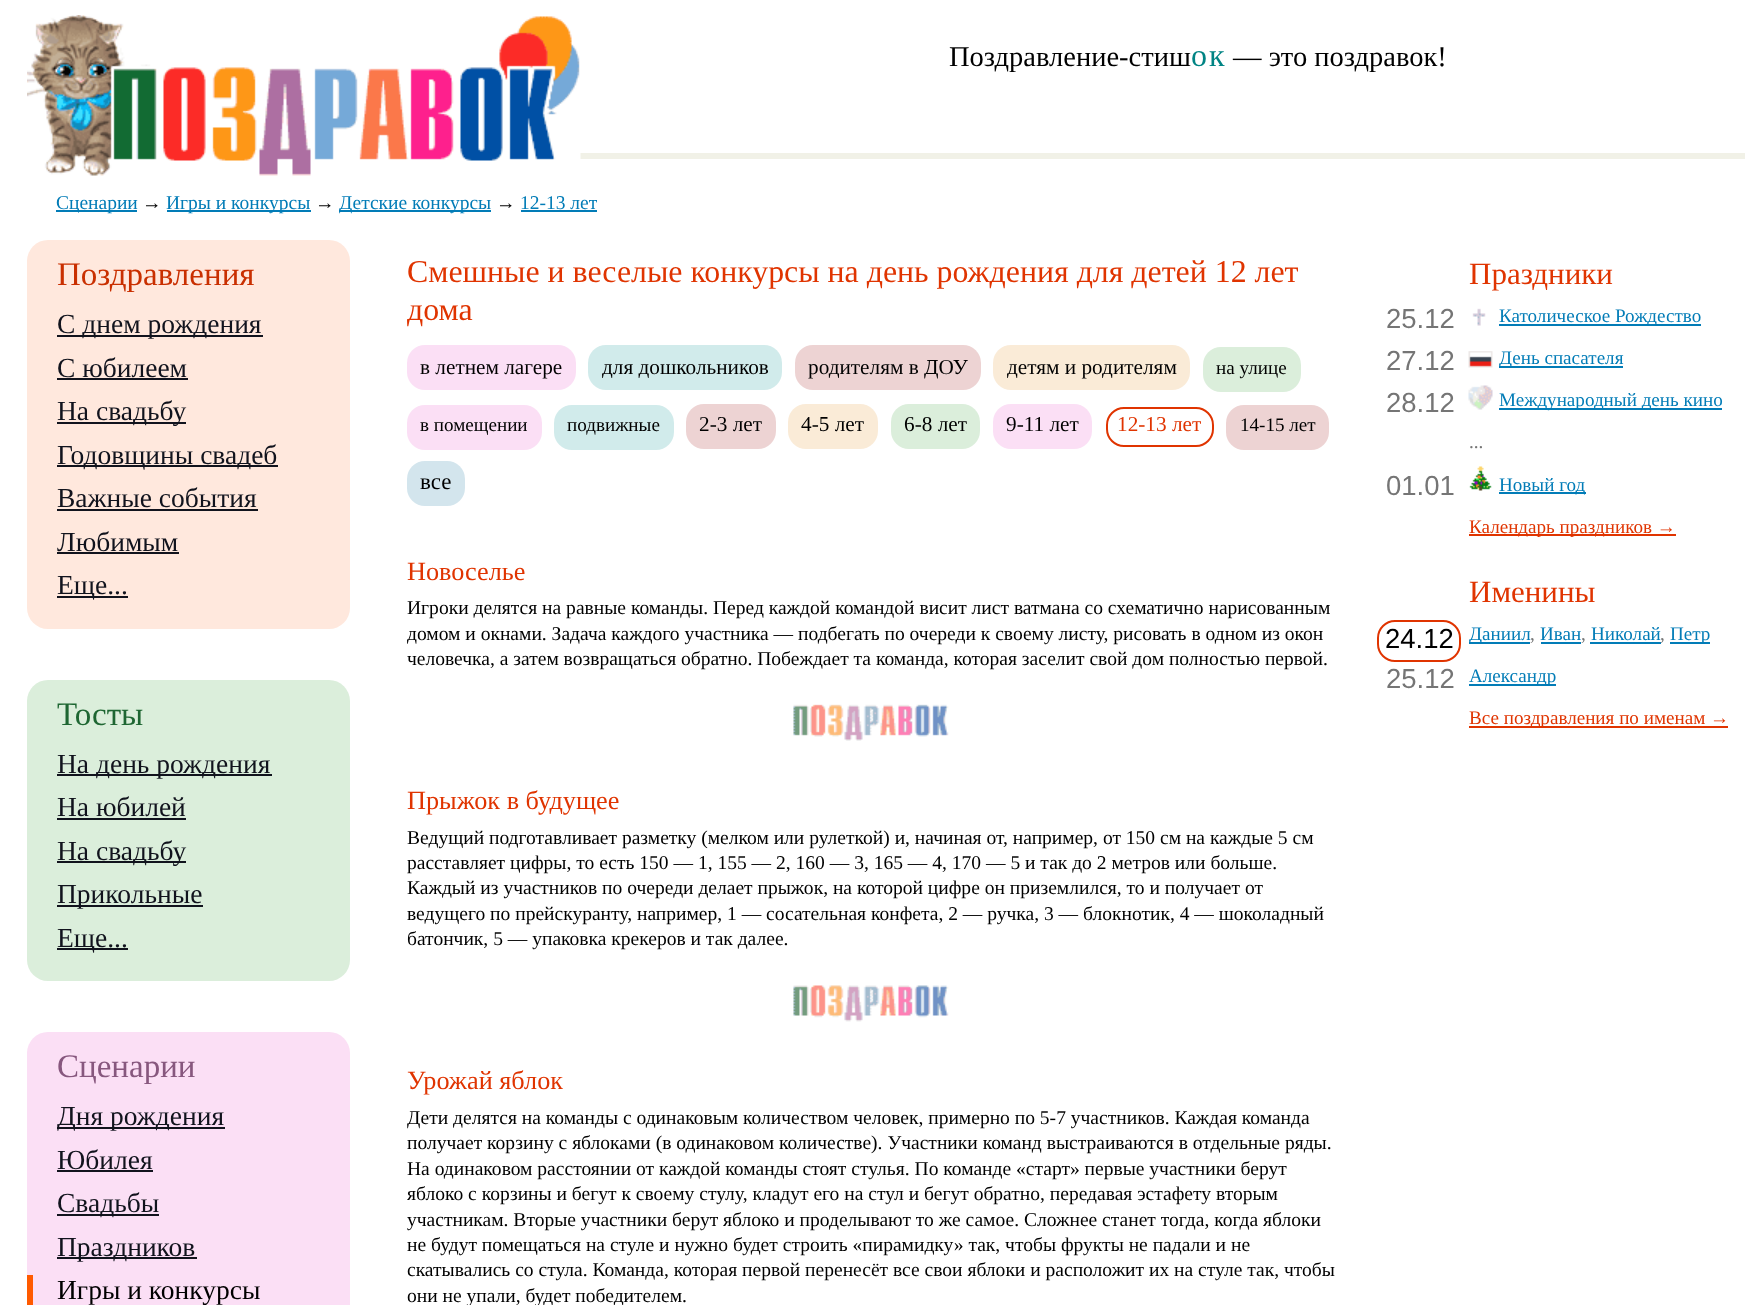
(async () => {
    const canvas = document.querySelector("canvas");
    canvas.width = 1755;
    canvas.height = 1305;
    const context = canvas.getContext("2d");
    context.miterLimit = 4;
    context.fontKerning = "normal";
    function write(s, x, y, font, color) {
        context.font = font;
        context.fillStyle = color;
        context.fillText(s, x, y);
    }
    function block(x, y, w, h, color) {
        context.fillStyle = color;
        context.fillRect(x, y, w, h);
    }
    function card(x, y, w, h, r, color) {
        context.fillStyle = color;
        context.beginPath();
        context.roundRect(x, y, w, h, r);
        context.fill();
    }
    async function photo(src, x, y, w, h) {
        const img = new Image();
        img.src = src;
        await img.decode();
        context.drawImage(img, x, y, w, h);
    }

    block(0, 0, 1755, 1305, "rgb(255, 255, 255)");
    block(580, 153, 1165, 6, "rgb(241, 241, 231)");
    await photo("media/1.png", 27, 15, 554, 161);
    write("Поздравление-стиш", 949, 66, "28.5px Liberation Serif", "rgb(0, 0, 0)");
    context.letterSpacing = "2px";
    write("ок", 1191, 66, "32px Liberation Serif", "rgb(0, 132, 132)");
    context.letterSpacing = "0px";
    write("— это поздравок!", 1233, 66, "28.5px Liberation Serif", "rgb(0, 0, 0)");
    block(56, 210, 81, 2, "rgb(2, 124, 183)");
    write("Сценарии", 56, 209, "19.5px Liberation Serif", "rgb(2, 124, 183)");
    write("→", 142, 209, "19.5px Liberation Serif", "rgb(0, 0, 0)");
    block(167, 210, 144, 2, "rgb(2, 124, 183)");
    write("Игры и конкурсы", 166, 209, "19.5px Liberation Serif", "rgb(2, 124, 183)");
    write("→", 315, 209, "19.5px Liberation Serif", "rgb(0, 0, 0)");
    block(339, 210, 152, 2, "rgb(2, 124, 183)");
    write("Детские конкурсы", 339, 209, "19.5px Liberation Serif", "rgb(2, 124, 183)");
    write("→", 496, 209, "19.5px Liberation Serif", "rgb(0, 0, 0)");
    write("12-13 лет", 520, 209, "19.5px Liberation Serif", "rgb(2, 124, 183)");
    block(521, 210, 76, 2, "rgb(2, 124, 183)");
    card(27, 240, 323, 389, 21, "rgb(255, 232, 221)");
    write("Поздравления", 57, 285, "33px Liberation Serif", "rgb(201, 47, 0)");
    block(57, 335, 206, 2, "rgb(17, 19, 29)");
    write("С днем рождения", 57, 333, "27.5px Liberation Serif", "rgb(17, 19, 29)");
    write("С юбилеем", 57, 377, "27.5px Liberation Serif", "rgb(17, 19, 29)");
    block(57, 378, 131, 2, "rgb(17, 19, 29)");
    block(57, 422, 129, 2, "rgb(17, 19, 29)");
    write("На свадьбу", 57, 420, "27.5px Liberation Serif", "rgb(17, 19, 29)");
    block(57, 465, 221, 2, "rgb(17, 19, 29)");
    write("Годовщины свадеб", 57, 464, "27.5px Liberation Serif", "rgb(17, 19, 29)");
    write("Важные события", 57, 507, "27.5px Liberation Serif", "rgb(17, 19, 29)");
    block(57, 509, 201, 2, "rgb(17, 19, 29)");
    write("Любимым", 57, 551, "27.5px Liberation Serif", "rgb(17, 19, 29)");
    block(57, 552, 122, 2, "rgb(17, 19, 29)");
    block(57, 596, 71, 2, "rgb(17, 19, 29)");
    write("Еще...", 57, 594, "27.5px Liberation Serif", "rgb(17, 19, 29)");
    card(27, 680, 323, 301, 21, "rgb(219, 238, 219)");
    write("Тосты", 57, 725, "33px Liberation Serif", "rgb(30, 102, 50)");
    block(57, 774, 215, 2, "rgb(17, 19, 29)");
    write("На день рождения", 57, 773, "27.5px Liberation Serif", "rgb(17, 19, 29)");
    write("На юбилей", 57, 816, "27.5px Liberation Serif", "rgb(17, 19, 29)");
    block(57, 818, 129, 2, "rgb(17, 19, 29)");
    block(57, 861, 129, 2, "rgb(17, 19, 29)");
    write("На свадьбу", 57, 860, "27.5px Liberation Serif", "rgb(17, 19, 29)");
    block(57, 905, 146, 2, "rgb(17, 19, 29)");
    write("Прикольные", 57, 903, "27.5px Liberation Serif", "rgb(17, 19, 29)");
    block(57, 948, 71, 2, "rgb(17, 19, 29)");
    write("Еще...", 57, 947, "27.5px Liberation Serif", "rgb(17, 19, 29)");
    card(27, 1032, 323, 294, 21, "rgb(251, 223, 245)");
    write("Сценарии", 57, 1077, "33px Liberation Serif", "rgb(135, 87, 126)");
    block(57, 1127, 168, 2, "rgb(17, 19, 29)");
    write("Дня рождения", 57, 1125, "27.5px Liberation Serif", "rgb(17, 19, 29)");
    write("Юбилея", 57, 1169, "27.5px Liberation Serif", "rgb(17, 19, 29)");
    block(57, 1170, 96, 2, "rgb(17, 19, 29)");
    block(57, 1214, 102, 2, "rgb(17, 19, 29)");
    write("Свадьбы", 57, 1212, "27.5px Liberation Serif", "rgb(17, 19, 29)");
    block(57, 1257, 140, 2, "rgb(17, 19, 29)");
    write("Праздников", 57, 1256, "27.5px Liberation Serif", "rgb(17, 19, 29)");
    write("Игры и конкурсы", 57, 1299, "27.5px Liberation Serif", "rgb(0, 0, 0)");
    block(27, 1275, 6, 30, "rgb(255, 90, 0)");
    write("Смешные и веселые конкурсы на день рождения для детей 12 лет", 407, 282, "31.85px Liberation Serif", "rgb(224, 52, 0)");
    write("дома", 407, 320, "31.85px Liberation Serif", "rgb(224, 52, 0)");
    card(407, 345, 169, 45, 18, "rgb(251, 223, 245)");
    write("в летнем лагере", 420, 374, "21.25px Liberation Serif", "rgb(0, 0, 0)");
    card(588, 345, 194, 45, 18, "rgb(209, 235, 235)");
    write("для дошкольников", 602, 374, "21.25px Liberation Serif", "rgb(0, 0, 0)");
    card(795, 345, 186, 45, 18, "rgb(237, 211, 211)");
    write("родителям в ДОУ", 808, 374, "21.25px Liberation Serif", "rgb(0, 0, 0)");
    card(993, 345, 197, 45, 18, "rgb(250, 235, 215)");
    write("детям и родителям", 1007, 374, "21.25px Liberation Serif", "rgb(0, 0, 0)");
    card(1203, 347, 98, 45, 18, "rgb(219, 238, 219)");
    write("на улице", 1216, 374, "19.1px Liberation Serif", "rgb(0, 0, 0)");
    card(407, 405, 135, 45, 18, "rgb(251, 223, 245)");
    write("в помещении", 420, 431, "19.1px Liberation Serif", "rgb(0, 0, 0)");
    card(554, 405, 120, 45, 18, "rgb(209, 235, 235)");
    write("подвижные", 567, 431, "19.1px Liberation Serif", "rgb(0, 0, 0)");
    card(686, 404, 90, 45, 18, "rgb(237, 211, 211)");
    write("2-3 лет", 699, 431, "21.25px Liberation Serif", "rgb(0, 0, 0)");
    card(788, 404, 90, 45, 18, "rgb(250, 235, 215)");
    write("4-5 лет", 801, 431, "21.25px Liberation Serif", "rgb(0, 0, 0)");
    card(891, 404, 89, 45, 18, "rgb(219, 238, 219)");
    write("6-8 лет", 904, 431, "21.25px Liberation Serif", "rgb(0, 0, 0)");
    card(993, 404, 99, 45, 18, "rgb(251, 223, 245)");
    write("9-11 лет", 1006, 431, "21.25px Liberation Serif", "rgb(0, 0, 0)");
    context.beginPath();
    context.roundRect(1107, 408, 106, 38, 17);
    context.strokeStyle = "rgb(224, 52, 0)";
    context.lineWidth = 2;
    context.stroke();
    write("12-13 лет", 1117, 431, "21.25px Liberation Serif", "rgb(224, 52, 0)");
    card(1226, 405, 103, 45, 18, "rgb(237, 211, 211)");
    write("14-15 лет", 1240, 431, "19.1px Liberation Serif", "rgb(0, 0, 0)");
    card(407, 461, 58, 45, 18, "rgb(211, 229, 237)");
    write("все", 420, 489, "23px Liberation Serif", "rgb(0, 0, 0)");
    write("Новоселье", 407, 580, "26.25px Liberation Serif", "rgb(224, 52, 0)");
    write("Игроки делятся на равные команды. Перед каждой командой висит лист ватмана со схематично нарисованным", 407, 614, "19.55px Liberation Serif", "rgb(0, 0, 0)");
    write("домом и окнами. Задача каждого участника — подбегать по очереди к своему листу, рисовать в одном из окон", 407, 640, "19.55px Liberation Serif", "rgb(0, 0, 0)");
    write("человечка, а затем возвращаться обратно. Побеждает та команда, которая заселит свой дом полностью первой.", 407, 665, "19.55px Liberation Serif", "rgb(0, 0, 0)");
    await photo("media/2.png", 793, 704, 156, 37);
    write("Прыжок в будущее", 407, 809, "26.25px Liberation Serif", "rgb(224, 52, 0)");
    write("Ведущий подготавливает разметку (мелком или рулеткой) и, начиная от, например, от 150 см на каждые 5 см", 407, 844, "19.55px Liberation Serif", "rgb(0, 0, 0)");
    write("расставляет цифры, то есть 150 — 1, 155 — 2, 160 — 3, 165 — 4, 170 — 5 и так до 2 метров или больше.", 407, 869, "19.55px Liberation Serif", "rgb(0, 0, 0)");
    write("Каждый из участников по очереди делает прыжок, на которой цифре он приземлился, то и получает от", 407, 894, "19.55px Liberation Serif", "rgb(0, 0, 0)");
    write("ведущего по прейскуранту, например, 1 — сосательная конфета, 2 — ручка, 3 — блокнотик, 4 — шоколадный", 407, 920, "19.55px Liberation Serif", "rgb(0, 0, 0)");
    write("батончик, 5 — упаковка крекеров и так далее.", 407, 945, "19.55px Liberation Serif", "rgb(0, 0, 0)");
    await photo("media/3.png", 793, 985, 156, 37);
    write("Урожай яблок", 407, 1089, "26.25px Liberation Serif", "rgb(224, 52, 0)");
    write("Дети делятся на команды с одинаковым количеством человек, примерно по 5-7 участников. Каждая команда", 407, 1124, "19.55px Liberation Serif", "rgb(0, 0, 0)");
    write("получает корзину с яблоками (в одинаковом количестве). Участники команд выстраиваются в отдельные ряды.", 407, 1149, "19.55px Liberation Serif", "rgb(0, 0, 0)");
    write("На одинаковом расстоянии от каждой команды стоят стулья. По команде «старт» первые участники берут", 407, 1175, "19.55px Liberation Serif", "rgb(0, 0, 0)");
    write("яблоко с корзины и бегут к своему стулу, кладут его на стул и бегут обратно, передавая эстафету вторым", 407, 1200, "19.55px Liberation Serif", "rgb(0, 0, 0)");
    write("участникам. Вторые участники берут яблоко и проделывают то же самое. Сложнее станет тогда, когда яблоки", 407, 1226, "19.55px Liberation Serif", "rgb(0, 0, 0)");
    write("не будут помещаться на стуле и нужно будет строить «пирамидку» так, чтобы фрукты не падали и не", 407, 1251, "19.55px Liberation Serif", "rgb(0, 0, 0)");
    write("скатывались со стула. Команда, которая первой перенесёт все свои яблоки и расположит их на стуле так, чтобы", 407, 1276, "19.55px Liberation Serif", "rgb(0, 0, 0)");
    write("они не упали, будет победителем.", 407, 1302, "19.55px Liberation Serif", "rgb(0, 0, 0)");
    write("Праздники", 1469, 284, "31px Liberation Serif", "rgb(224, 52, 0)");
    write("25.12", 1386, 328, "27.5px Liberation Sans", "rgb(117, 117, 117)");
    await photo("media/4.png", 1472, 308, 14, 18);
    block(1499, 324, 202, 2, "rgb(2, 124, 183)");
    write("Католическое Рождество", 1499, 322, "19.1px Liberation Serif", "rgb(2, 124, 183)");
    write("27.12", 1386, 370, "27.5px Liberation Sans", "rgb(117, 117, 117)");
    await photo("media/5.png", 1468, 351, 25, 17);
    block(1499, 366, 124, 2, "rgb(2, 124, 183)");
    write("День спасателя", 1499, 364, "19.1px Liberation Serif", "rgb(2, 124, 183)");
    write("28.12", 1386, 412, "27.5px Liberation Sans", "rgb(117, 117, 117)");
    await photo("media/6.png", 1468, 385, 25, 25);
    block(1499, 408, 223, 2, "rgb(2, 124, 183)");
    write("Международный день кино", 1499, 406, "19.1px Liberation Serif", "rgb(2, 124, 183)");
    write("...", 1469, 448, "19.1px Liberation Serif", "rgb(117, 117, 117)");
    write("01.01", 1386, 495, "27.5px Liberation Sans", "rgb(117, 117, 117)");
    await photo("media/7.png", 1469, 466, 23, 25);
    block(1499, 492, 87, 2, "rgb(2, 124, 183)");
    write("Новый год", 1499, 491, "19.1px Liberation Serif", "rgb(2, 124, 183)");
    block(1469, 534, 207, 2, "rgb(224, 52, 0)");
    write("Календарь праздников →", 1469, 533, "19.1px Liberation Serif", "rgb(224, 52, 0)");
    write("Именины", 1469, 602, "31px Liberation Serif", "rgb(224, 52, 0)");
    context.beginPath();
    context.roundRect(1378, 621, 82, 40, 17);
    context.stroke();
    write("24.12", 1385, 648, "27.5px Liberation Sans", "rgb(0, 0, 0)");
    block(1469, 642, 61, 2, "rgb(2, 124, 183)");
    write("Даниил", 1469, 640, "19.1px Liberation Serif", "rgb(2, 124, 183)");
    write(",", 1530, 640, "19.1px Liberation Serif", "rgb(117, 117, 117)");
    write("Иван", 1540, 640, "19.1px Liberation Serif", "rgb(2, 124, 183)");
    block(1541, 642, 40, 2, "rgb(2, 124, 183)");
    write(",", 1581, 640, "19.1px Liberation Serif", "rgb(117, 117, 117)");
    write("Николай", 1591, 640, "19.1px Liberation Serif", "rgb(2, 124, 183)");
    block(1590, 642, 71, 2, "rgb(2, 124, 183)");
    write(",", 1660, 640, "19.1px Liberation Serif", "rgb(117, 117, 117)");
    block(1670, 642, 40, 2, "rgb(2, 124, 183)");
    write("Петр", 1670, 640, "19.1px Liberation Serif", "rgb(2, 124, 183)");
    write("25.12", 1386, 688, "27.5px Liberation Sans", "rgb(117, 117, 117)");
    block(1469, 684, 87, 2, "rgb(2, 124, 183)");
    write("Александр", 1469, 682, "19.1px Liberation Serif", "rgb(2, 124, 183)");
    block(1469, 726, 259, 2, "rgb(224, 52, 0)");
    write("Все поздравления по именам →", 1469, 724, "19.1px Liberation Serif", "rgb(224, 52, 0)");
})();
